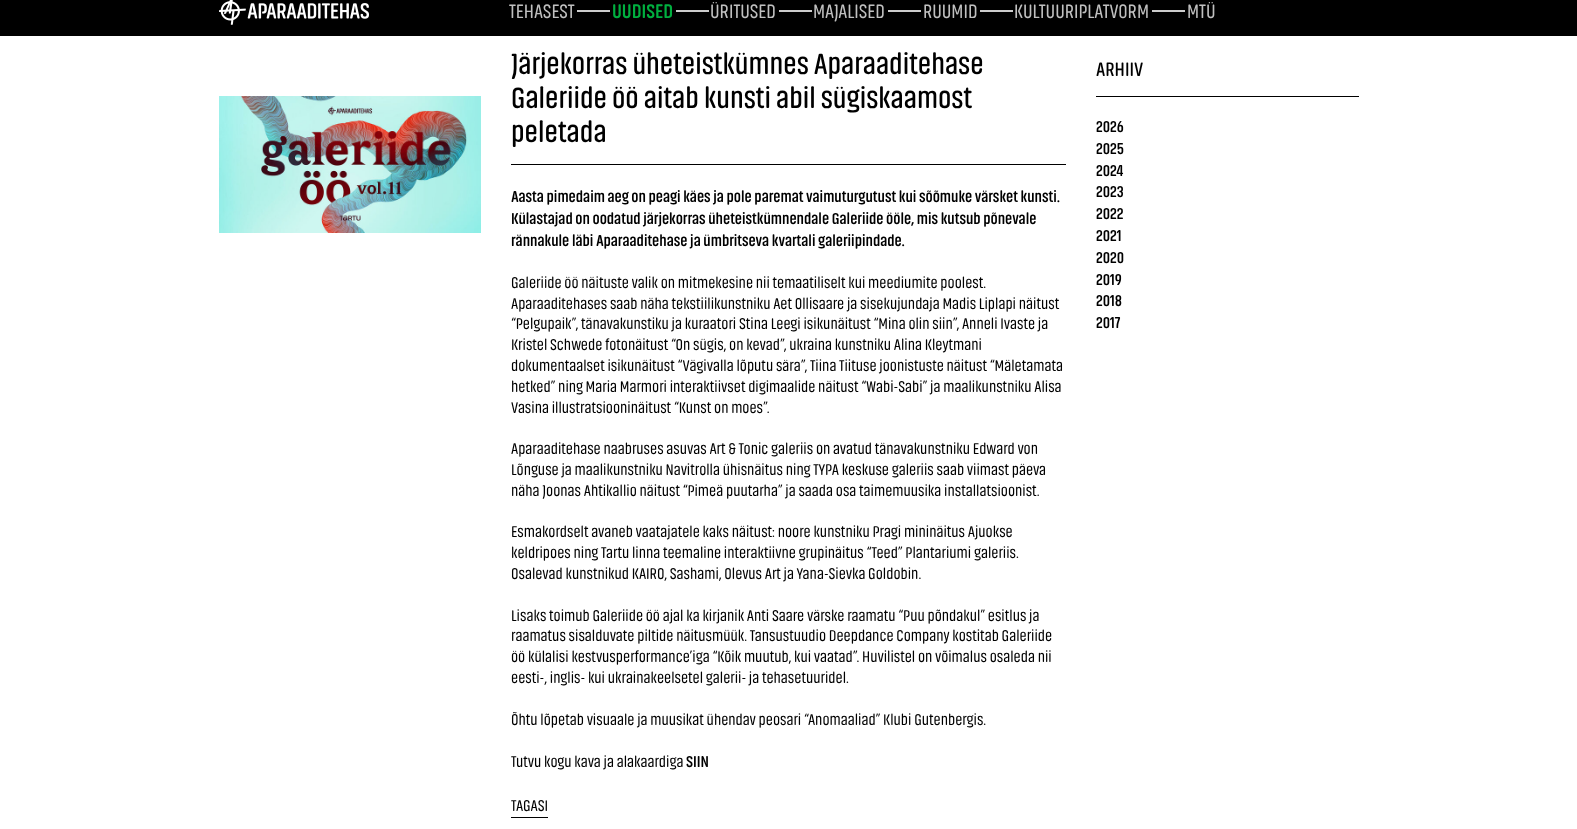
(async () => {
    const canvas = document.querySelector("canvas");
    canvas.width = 1577;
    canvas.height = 829;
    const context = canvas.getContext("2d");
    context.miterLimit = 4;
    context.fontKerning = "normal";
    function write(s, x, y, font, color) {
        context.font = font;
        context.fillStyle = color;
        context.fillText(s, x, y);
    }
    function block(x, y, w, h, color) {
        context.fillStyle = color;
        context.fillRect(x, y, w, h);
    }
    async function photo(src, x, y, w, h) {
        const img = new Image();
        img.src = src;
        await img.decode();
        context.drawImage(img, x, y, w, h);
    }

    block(0, 0, 1577, 829, "rgb(255, 255, 255)");
    block(0, 0, 1577, 36, "rgb(0, 0, 0)");
    await photo("media/1.png", 219, 0, 150, 25);
    write("TEHASEST", 509, 18, "20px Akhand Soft", "rgb(192, 192, 192)");
    block(577, 10, 33, 2, "rgb(204, 204, 204)");
    write("UUDISED", 612, 18, "bold 20px Akhand Soft", "rgb(0, 175, 63)");
    block(676, 10, 33, 2, "rgb(204, 204, 204)");
    write("ÜRITUSED", 710, 18, "20px Akhand Soft", "rgb(192, 192, 192)");
    block(779, 10, 33, 2, "rgb(204, 204, 204)");
    write("MAJALISED", 813, 18, "20px Akhand Soft", "rgb(192, 192, 192)");
    block(888, 10, 33, 2, "rgb(204, 204, 204)");
    write("RUUMID", 923, 18, "20px Akhand Soft", "rgb(192, 192, 192)");
    block(980, 10, 33, 2, "rgb(204, 204, 204)");
    write("KULTUURIPLATVORM", 1014, 18, "20px Akhand Soft", "rgb(192, 192, 192)");
    block(1152, 10, 33, 2, "rgb(204, 204, 204)");
    write("MTÜ", 1187, 18, "20px Akhand Soft", "rgb(192, 192, 192)");
    await photo("media/2.png", 219, 96, 262, 137);
    block(511, 164, 555, 1, "rgb(0, 0, 0)");
    write("Järjekorras üheteistkümnes Aparaaditehase", 511, 74, "600 30px Akhand Soft", "rgb(0, 0, 0)");
    write("Galeriide öö aitab kunsti abil sügiskaamost", 511, 108, "600 30px Akhand Soft", "rgb(0, 0, 0)");
    write("peletada", 511, 142, "600 30px Akhand Soft", "rgb(0, 0, 0)");
    write("Aasta pimedaim aeg on peagi käes ja pole paremat vaimuturgutust kui sõõmuke värsket kunsti.", 511, 202, "bold 16px Akhand Soft", "rgb(0, 0, 0)");
    write("Külastajad on oodatud järjekorras üheteistkümnendale Galeriide ööle, mis kutsub põnevale", 511, 224, "bold 16px Akhand Soft", "rgb(0, 0, 0)");
    write("rännakule läbi Aparaaditehase ja ümbritseva kvartali galeriipindade.", 511, 246, "bold 16px Akhand Soft", "rgb(0, 0, 0)");
    write("Galeriide öö näituste valik on mitmekesine nii temaatiliselt kui meediumite poolest.", 511, 288, "16px Akhand Soft", "rgb(0, 0, 0)");
    write("Aparaaditehases saab näha tekstiilikunstniku Aet Ollisaare ja sisekujundaja Madis Liplapi näitust", 511, 309, "16px Akhand Soft", "rgb(0, 0, 0)");
    write("“Pelgupaik”, tänavakunstiku ja kuraatori Stina Leegi isikunäitust “Mina olin siin”, Anneli Ivaste ja", 511, 329, "16px Akhand Soft", "rgb(0, 0, 0)");
    write("Kristel Schwede fotonäitust “On sügis, on kevad”, ukraina kunstniku Alina Kleytmani", 511, 350, "16px Akhand Soft", "rgb(0, 0, 0)");
    write("dokumentaalset isikunäitust “Vägivalla lõputu sära”, Tiina Tiituse joonistuste näitust “Mäletamata", 511, 371, "16px Akhand Soft", "rgb(0, 0, 0)");
    write("hetked” ning Maria Marmori interaktiivset digimaalide näitust “Wabi-Sabi” ja maalikunstniku Alisa", 511, 392, "16px Akhand Soft", "rgb(0, 0, 0)");
    write("Vasina illustratsiooninäitust “Kunst on moes”.", 511, 413, "16px Akhand Soft", "rgb(0, 0, 0)");
    write("Aparaaditehase naabruses asuvas Art & Tonic galeriis on avatud tänavakunstniku Edward von", 511, 454, "16px Akhand Soft", "rgb(0, 0, 0)");
    write("Lõnguse ja maalikunstniku Navitrolla ühisnäitus ning TYPA keskuse galeriis saab viimast päeva", 511, 475, "16px Akhand Soft", "rgb(0, 0, 0)");
    write("näha Joonas Ahtikallio näitust “Pimeä puutarha” ja saada osa taimemuusika installatsioonist.", 511, 496, "16px Akhand Soft", "rgb(0, 0, 0)");
    write("Esmakordselt avaneb vaatajatele kaks näitust: noore kunstniku Pragi mininäitus Ajuokse", 511, 537, "16px Akhand Soft", "rgb(0, 0, 0)");
    write("keldripoes ning Tartu linna teemaline interaktiivne grupinäitus “Teed” Plantariumi galeriis.", 511, 558, "16px Akhand Soft", "rgb(0, 0, 0)");
    write("Osalevad kunstnikud KAIRO, Sashami, Olevus Art ja Yana-Sievka Goldobin.", 511, 579, "16px Akhand Soft", "rgb(0, 0, 0)");
    write("Lisaks toimub Galeriide öö ajal ka kirjanik Anti Saare värske raamatu “Puu põndakul” esitlus ja", 511, 621, "16px Akhand Soft", "rgb(0, 0, 0)");
    write("raamatus sisalduvate piltide näitusmüük. Tansustuudio Deepdance Company kostitab Galeriide", 511, 641, "16px Akhand Soft", "rgb(0, 0, 0)");
    write("öö külalisi kestvusperformance’iga “Kõik muutub, kui vaatad”. Huvilistel on võimalus osaleda nii", 511, 662, "16px Akhand Soft", "rgb(0, 0, 0)");
    write("eesti-, inglis- kui ukrainakeelsetel galerii- ja tehasetuuridel.", 511, 683, "16px Akhand Soft", "rgb(0, 0, 0)");
    write("Õhtu lõpetab visuaale ja muusikat ühendav peosari “Anomaaliad” Klubi Gutenbergis.", 511, 725, "16px Akhand Soft", "rgb(0, 0, 0)");
    write("Tutvu kogu kava ja alakaardiga", 511, 767, "16px Akhand Soft", "rgb(0, 0, 0)");
    write("SIIN", 686, 767, "bold 16px Akhand Soft", "rgb(0, 0, 0)");
    block(511, 817, 37, 1, "rgb(0, 0, 0)");
    write("TAGASI", 511, 811, "16px Akhand Soft", "rgb(0, 0, 0)");
    block(1096, 96, 263, 1, "rgb(0, 0, 0)");
    write("ARHIIV", 1096, 76, "600 20px Akhand Soft", "rgb(0, 0, 0)");
    write("2026", 1096, 132, "bold 16px Akhand Soft", "rgb(0, 0, 0)");
    write("2025", 1096, 154, "bold 16px Akhand Soft", "rgb(0, 0, 0)");
    write("2024", 1096, 176, "bold 16px Akhand Soft", "rgb(0, 0, 0)");
    write("2023", 1096, 197, "bold 16px Akhand Soft", "rgb(0, 0, 0)");
    write("2022", 1096, 219, "bold 16px Akhand Soft", "rgb(0, 0, 0)");
    write("2021", 1096, 241, "bold 16px Akhand Soft", "rgb(0, 0, 0)");
    write("2020", 1096, 263, "bold 16px Akhand Soft", "rgb(0, 0, 0)");
    write("2019", 1096, 285, "bold 16px Akhand Soft", "rgb(0, 0, 0)");
    write("2018", 1096, 306, "bold 16px Akhand Soft", "rgb(0, 0, 0)");
    write("2017", 1096, 328, "bold 16px Akhand Soft", "rgb(0, 0, 0)");
})();
